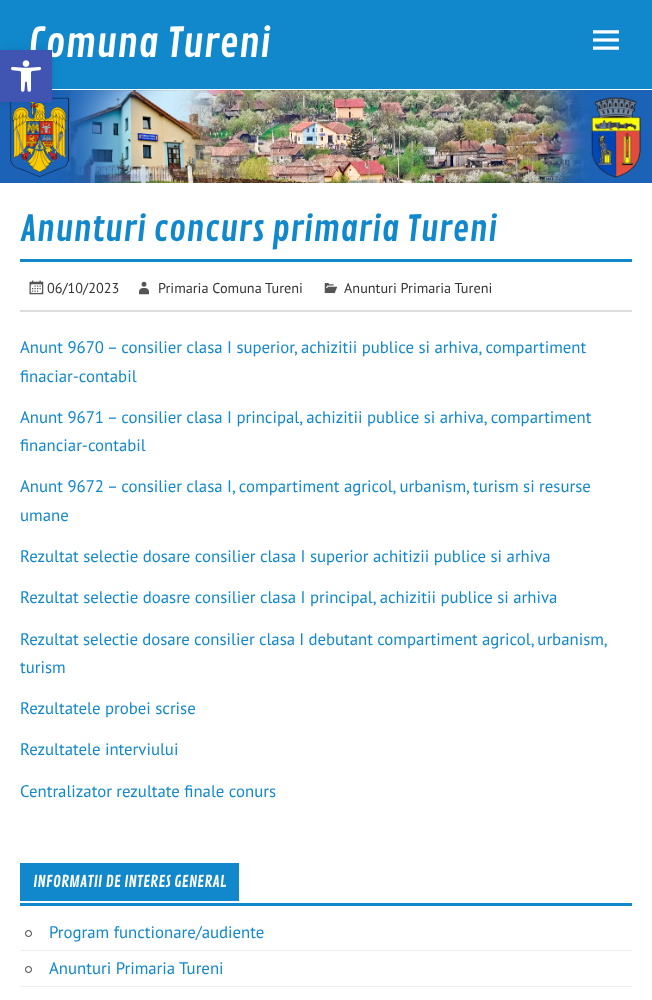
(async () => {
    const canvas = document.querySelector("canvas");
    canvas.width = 652;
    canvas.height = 1000;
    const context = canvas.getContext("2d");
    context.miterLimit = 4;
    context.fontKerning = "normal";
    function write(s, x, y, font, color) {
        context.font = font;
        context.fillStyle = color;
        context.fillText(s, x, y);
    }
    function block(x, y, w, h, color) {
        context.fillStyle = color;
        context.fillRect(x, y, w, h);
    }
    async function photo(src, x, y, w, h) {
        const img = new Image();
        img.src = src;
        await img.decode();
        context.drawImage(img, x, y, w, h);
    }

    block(0, 0, 652, 1000, "rgb(255, 255, 255)");
    block(0, 0, 652, 89, "rgb(17, 136, 204)");
    write("Comuna Tureni", 28, 57, "40.25px Contrail One", "rgb(255, 255, 255)");
    await photo("media/1.png", 593, 30, 26, 20);
    await photo("media/2.png", 0, 90, 652, 93);
    block(20, 259, 612, 3, "rgb(17, 136, 204)");
    write("Anunturi concurs primaria Tureni", 20, 241, "35.25px Contrail One", "rgb(17, 136, 204)");
    block(20, 310, 612, 2, "rgb(221, 221, 221)");
    await photo("media/3.png", 29, 280, 15, 15);
    write("06/10/2023", 47, 293, "14.25px PT Sans", "rgb(51, 51, 51)");
    await photo("media/4.png", 139, 281, 10, 14);
    write("Primaria Comuna Tureni", 158, 293, "14.25px PT Sans", "rgb(51, 51, 51)");
    await photo("media/5.png", 324, 283, 14, 10);
    write("Anunturi Primaria Tureni", 344, 293, "14.25px PT Sans", "rgb(51, 51, 51)");
    write("Anunt 9670 – consilier clasa I superior, achizitii publice si arhiva, compartiment", 20, 353, "16.8px PT Sans", "rgb(17, 136, 204)");
    write("finaciar-contabil", 20, 382, "16.8px PT Sans", "rgb(17, 136, 204)");
    write("Anunt 9671 – consilier clasa I principal, achizitii publice si arhiva, compartiment", 20, 423, "16.8px PT Sans", "rgb(17, 136, 204)");
    write("financiar-contabil", 20, 451, "16.8px PT Sans", "rgb(17, 136, 204)");
    write("Anunt 9672 – consilier clasa I, compartiment agricol, urbanism, turism si resurse", 20, 492, "16.8px PT Sans", "rgb(17, 136, 204)");
    write("umane", 20, 521, "16.8px PT Sans", "rgb(17, 136, 204)");
    write("Rezultat selectie dosare consilier clasa I superior achitizii publice si arhiva", 20, 562, "16.8px PT Sans", "rgb(17, 136, 204)");
    write("Rezultat selectie doasre consilier clasa I principal, achizitii publice si arhiva", 20, 603, "16.8px PT Sans", "rgb(17, 136, 204)");
    context.wordSpacing = "-0.25px";
    write("Rezultat selectie dosare consilier clasa I debutant compartiment agricol, urbanism,", 20, 645, "16.8px PT Sans", "rgb(17, 136, 204)");
    context.wordSpacing = "0px";
    write("turism", 20, 673, "16.8px PT Sans", "rgb(17, 136, 204)");
    write("Rezultatele probei scrise", 20, 714, "16.8px PT Sans", "rgb(17, 136, 204)");
    write("Rezultatele interviului", 20, 755, "16.8px PT Sans", "rgb(17, 136, 204)");
    write("Centralizator rezultate finale conurs", 20, 797, "16.8px PT Sans", "rgb(17, 136, 204)");
    block(20, 903, 612, 3, "rgb(17, 136, 204)");
    block(20, 863, 219, 38, "rgb(17, 136, 204)");
    write("INFORMATII DE INTERES GENERAL", 33, 887, "16px Contrail One", "rgb(255, 255, 255)");
    block(20, 950, 612, 1, "rgb(238, 238, 238)");
    context.beginPath();
    context.arc(28.5, 933.5, 3, 0, Math.PI * 2);
    context.strokeStyle = "rgb(51, 51, 51)";
    context.stroke();
    write("Program functionare/audiente", 49, 938, "16.8px PT Sans", "rgb(17, 136, 204)");
    block(20, 986, 612, 1, "rgb(238, 238, 238)");
    context.beginPath();
    context.arc(28.5, 969.5, 3, 0, Math.PI * 2);
    context.stroke();
    write("Anunturi Primaria Tureni", 49, 974, "16.8px PT Sans", "rgb(17, 136, 204)");
    context.fillStyle = "rgba(0, 0, 0, 0.1)";
    context.filter = "blur(5px)";
    context.beginPath();
    context.rect(0, 50, 52, 52);
    context.fill();
    context.filter = "none";
    block(0, 50, 52, 52, "rgb(64, 84, 178)");
    await photo("media/6.png", 11, 60, 30, 32);
})();
